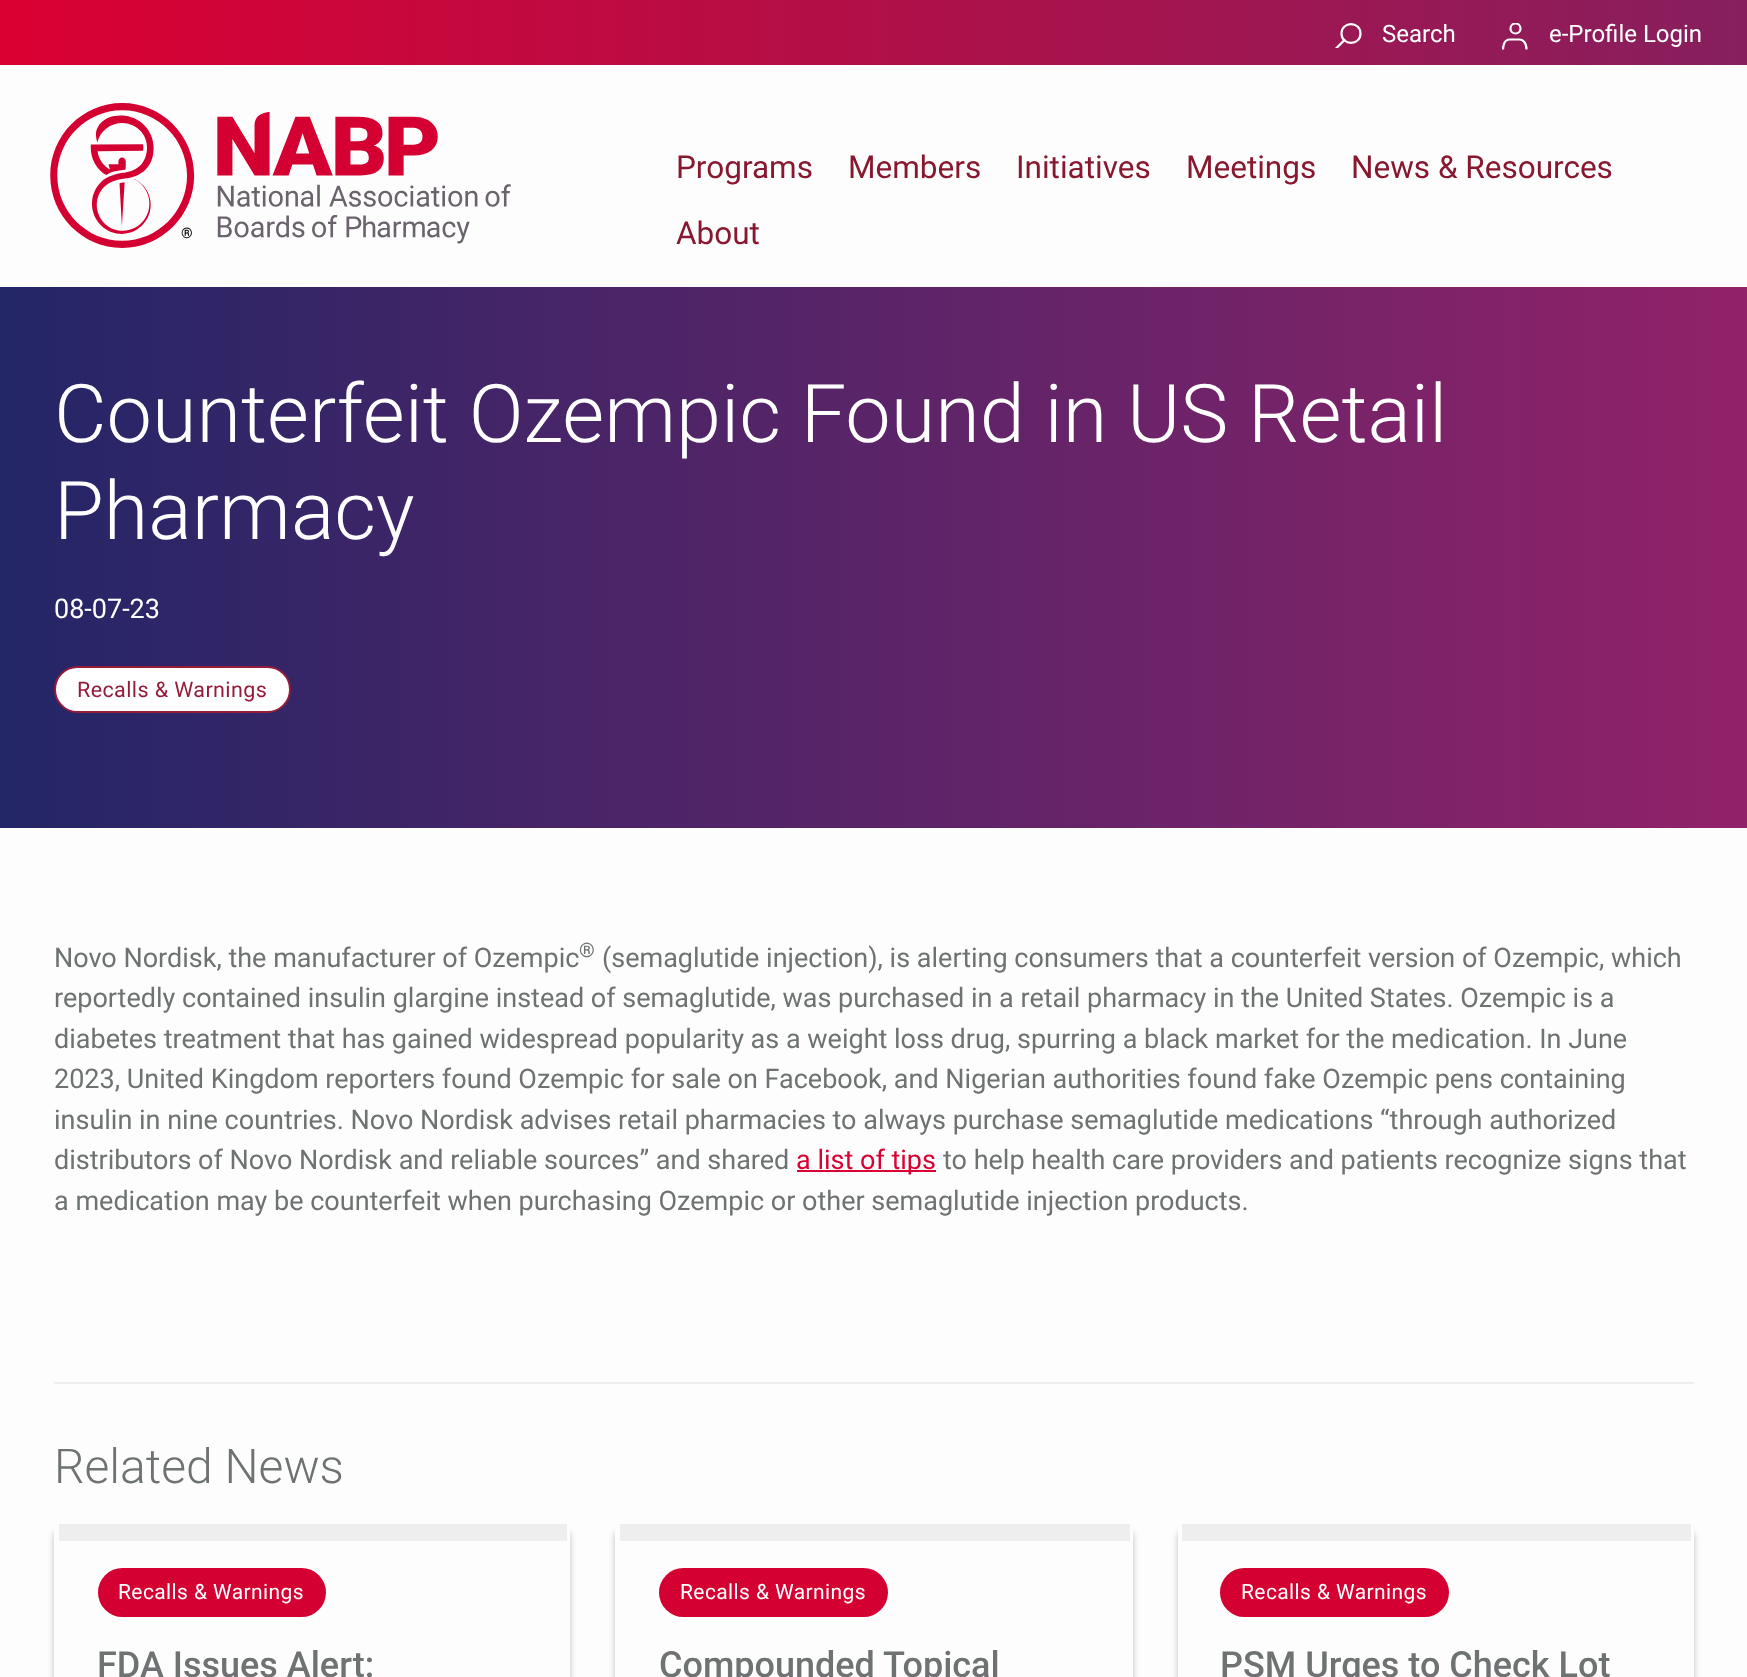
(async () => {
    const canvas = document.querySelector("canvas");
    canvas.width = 1747;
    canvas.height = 1677;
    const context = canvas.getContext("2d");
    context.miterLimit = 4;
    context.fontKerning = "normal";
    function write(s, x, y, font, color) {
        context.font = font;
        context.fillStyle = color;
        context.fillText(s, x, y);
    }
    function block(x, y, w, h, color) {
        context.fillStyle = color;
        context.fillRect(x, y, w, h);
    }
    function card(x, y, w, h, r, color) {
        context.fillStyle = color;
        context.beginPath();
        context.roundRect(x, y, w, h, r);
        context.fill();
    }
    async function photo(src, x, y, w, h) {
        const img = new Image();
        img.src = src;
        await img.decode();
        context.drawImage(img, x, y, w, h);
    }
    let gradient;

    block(0, 0, 1747, 1677, "rgb(253, 253, 253)");
    gradient = context.createLinearGradient(0, 32, 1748, 32);
    gradient.addColorStop(0, "rgb(219, 0, 50)");
    gradient.addColorStop(1, "rgb(135, 31, 94)");
    context.fillStyle = gradient;
    context.fillRect(0, 0, 1747, 65);
    write("Search", 1382, 42, "24px Roboto", "rgb(255, 255, 255)");
    context.beginPath();
    context.moveTo(1341.5, 33.5);
    context.bezierCurveTo(1341.5, 46, 1360.5, 46, 1360.5, 33.5);
    context.bezierCurveTo(1360.5, 21, 1341.5, 21, 1341.5, 33.5);
    context.closePath();
    context.strokeStyle = "rgb(255, 255, 255)";
    context.lineWidth = 2.2;
    context.lineCap = "round";
    context.lineJoin = "round";
    context.stroke();
    context.save();
    context.beginPath();
    context.rect(1334, 23, 28, 25);
    context.clip();
    context.beginPath();
    context.moveTo(1344.5, 40);
    context.lineTo(1335, 49.5);
    context.stroke();
    context.restore();
    write("e-Profile Login", 1549, 42, "24px Roboto", "rgb(255, 255, 255)");
    context.save();
    context.beginPath();
    context.rect(1502, 23, 27, 28);
    context.clip();
    context.beginPath();
    context.arc(1515.5, 28.5, 5, 0, Math.PI * 2);
    context.stroke();
    context.restore();
    context.beginPath();
    context.moveTo(1503, 49.5);
    context.bezierCurveTo(1503, 46.5, 1504, 39.5, 1509.5, 39.5);
    context.lineTo(1519.5, 39.5);
    context.bezierCurveTo(1522, 39.5, 1526.5, 41.5, 1526.5, 49.5);
    context.lineCap = "butt";
    context.lineJoin = "miter";
    context.stroke();
    await photo("media/1.png", 50, 103, 461, 145);
    write("Programs", 676, 178, "31.5px Roboto", "rgb(136, 24, 47)");
    write("Members", 848, 178, "31.5px Roboto", "rgb(136, 24, 47)");
    write("Initiatives", 1016, 178, "31.5px Roboto", "rgb(136, 24, 47)");
    write("Meetings", 1186, 178, "31.5px Roboto", "rgb(136, 24, 47)");
    write("News & Resources", 1351, 178, "31.5px Roboto", "rgb(136, 24, 47)");
    write("About", 676, 244, "31.5px Roboto", "rgb(136, 24, 47)");
    gradient = context.createLinearGradient(0, 557, 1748, 557);
    gradient.addColorStop(0, "rgb(35, 38, 103)");
    gradient.addColorStop(1, "rgb(146, 34, 105)");
    context.fillStyle = gradient;
    context.fillRect(0, 287, 1747, 541);
    write("Counterfeit Ozempic Found in US Retail", 54, 442, "300 81px Roboto", "rgb(255, 255, 255)");
    write("Pharmacy", 54, 539, "300 81px Roboto", "rgb(255, 255, 255)");
    write("08-07-23", 54, 618, "27px Roboto", "rgb(255, 255, 255)");
    context.beginPath();
    context.roundRect(55, 667, 235, 45, 22.5);
    context.fill();
    context.strokeStyle = "rgb(149, 28, 59)";
    context.lineWidth = 2;
    context.stroke();
    context.letterSpacing = "0.4px";
    write("Recalls & Warnings", 77, 697, "21.5px Roboto", "rgb(149, 28, 59)");
    context.letterSpacing = "0px";
    write("Novo Nordisk, the manufacturer of Ozempic", 54, 967, "27px Roboto", "rgb(110, 114, 114)");
    write("®", 579, 957, "20px Roboto", "rgb(110, 114, 114)");
    write("(semaglutide injection), is alerting consumers that a counterfeit version of Ozempic, which", 602, 967, "27px Roboto", "rgb(110, 114, 114)");
    write("reportedly contained insulin glargine instead of semaglutide, was purchased in a retail pharmacy in the United States. Ozempic is a", 54, 1007, "27px Roboto", "rgb(110, 114, 114)");
    write("diabetes treatment that has gained widespread popularity as a weight loss drug, spurring a black market for the medication. In June", 54, 1048, "27px Roboto", "rgb(110, 114, 114)");
    write("2023, United Kingdom reporters found Ozempic for sale on Facebook, and Nigerian authorities found fake Ozempic pens containing", 54, 1088, "27px Roboto", "rgb(110, 114, 114)");
    write("insulin in nine countries. Novo Nordisk advises retail pharmacies to always purchase semaglutide medications “through authorized", 54, 1129, "27px Roboto", "rgb(110, 114, 114)");
    write("distributors of Novo Nordisk and reliable sources” and shared", 54, 1169, "27px Roboto", "rgb(110, 114, 114)");
    block(797, 1170, 139, 2, "rgb(219, 0, 50)");
    write("a list of tips", 796, 1169, "27px Roboto", "rgb(219, 0, 50)");
    write("to help health care providers and patients recognize signs that", 943, 1169, "27px Roboto", "rgb(110, 114, 114)");
    write("a medication may be counterfeit when purchasing Ozempic or other semaglutide injection products.", 54, 1210, "27px Roboto", "rgb(110, 114, 114)");
    block(54, 1382, 1640, 2, "rgb(238, 238, 239)");
    write("Related News", 54, 1483, "300 48px Roboto", "rgb(110, 114, 114)");
    context.save();
    context.beginPath();
    context.moveTo(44, 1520);
    context.lineTo(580, 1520);
    context.lineTo(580, 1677);
    context.lineTo(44, 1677);
    context.closePath();
    context.moveTo(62, 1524);
    context.lineTo(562, 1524);
    context.bezierCurveTo(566.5, 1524, 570, 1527.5, 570, 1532);
    context.lineTo(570, 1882);
    context.bezierCurveTo(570, 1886.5, 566.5, 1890, 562, 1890);
    context.lineTo(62, 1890);
    context.bezierCurveTo(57.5, 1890, 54, 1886.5, 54, 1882);
    context.lineTo(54, 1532);
    context.bezierCurveTo(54, 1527.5, 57.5, 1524, 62, 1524);
    context.closePath();
    context.clip("evenodd");
    context.fillStyle = "rgba(0, 0, 0, 0.25)";
    context.filter = "blur(3px)";
    context.beginPath();
    context.roundRect(54, 1530, 516, 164, 8);
    context.fill();
    context.filter = "none";
    context.restore();
    block(59, 1524, 508, 17, "rgb(238, 238, 239)");
    card(98, 1568, 228, 49, 24.5, "rgb(213, 0, 50)");
    context.letterSpacing = "0.4px";
    write("Recalls & Warnings", 118, 1599, "21px Roboto", "rgb(255, 255, 255)");
    context.letterSpacing = "0px";
    write("FDA Issues Alert:", 97, 1677, "500 36px Roboto", "rgb(110, 114, 114)");
    context.save();
    context.beginPath();
    context.moveTo(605, 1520);
    context.lineTo(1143, 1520);
    context.lineTo(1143, 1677);
    context.lineTo(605, 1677);
    context.closePath();
    context.moveTo(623, 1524);
    context.lineTo(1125, 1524);
    context.bezierCurveTo(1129.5, 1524, 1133, 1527.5, 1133, 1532);
    context.lineTo(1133, 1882);
    context.bezierCurveTo(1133, 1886.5, 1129.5, 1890, 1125, 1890);
    context.lineTo(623, 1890);
    context.bezierCurveTo(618.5, 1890, 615, 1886.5, 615, 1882);
    context.lineTo(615, 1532);
    context.bezierCurveTo(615, 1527.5, 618.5, 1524, 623, 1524);
    context.closePath();
    context.clip("evenodd");
    context.fillStyle = "rgba(0, 0, 0, 0.25)";
    context.filter = "blur(3px)";
    context.beginPath();
    context.roundRect(615, 1530, 518, 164, 8);
    context.fill();
    context.filter = "none";
    context.restore();
    block(620, 1524, 510, 17, "rgb(238, 238, 239)");
    card(659, 1568, 229, 49, 24.5, "rgb(213, 0, 50)");
    context.letterSpacing = "0.4px";
    write("Recalls & Warnings", 680, 1599, "21px Roboto", "rgb(255, 255, 255)");
    context.letterSpacing = "0px";
    write("Compounded Topical", 659, 1677, "500 36px Roboto", "rgb(110, 114, 114)");
    context.save();
    context.beginPath();
    context.moveTo(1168, 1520);
    context.lineTo(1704, 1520);
    context.lineTo(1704, 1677);
    context.lineTo(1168, 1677);
    context.closePath();
    context.moveTo(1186, 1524);
    context.lineTo(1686, 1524);
    context.bezierCurveTo(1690.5, 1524, 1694, 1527.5, 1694, 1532);
    context.lineTo(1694, 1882);
    context.bezierCurveTo(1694, 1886.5, 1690.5, 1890, 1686, 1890);
    context.lineTo(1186, 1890);
    context.bezierCurveTo(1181.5, 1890, 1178, 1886.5, 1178, 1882);
    context.lineTo(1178, 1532);
    context.bezierCurveTo(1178, 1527.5, 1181.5, 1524, 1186, 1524);
    context.closePath();
    context.clip("evenodd");
    context.fillStyle = "rgba(0, 0, 0, 0.25)";
    context.filter = "blur(3px)";
    context.beginPath();
    context.roundRect(1178, 1530, 516, 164, 8);
    context.fill();
    context.filter = "none";
    context.restore();
    block(1182, 1524, 509, 17, "rgb(238, 238, 239)");
    card(1220, 1568, 229, 49, 24.5, "rgb(213, 0, 50)");
    context.letterSpacing = "0.4px";
    write("Recalls & Warnings", 1241, 1599, "21px Roboto", "rgb(255, 255, 255)");
    context.letterSpacing = "0px";
    write("PSM Urges to Check Lot", 1220, 1677, "500 36px Roboto", "rgb(110, 114, 114)");
})();
